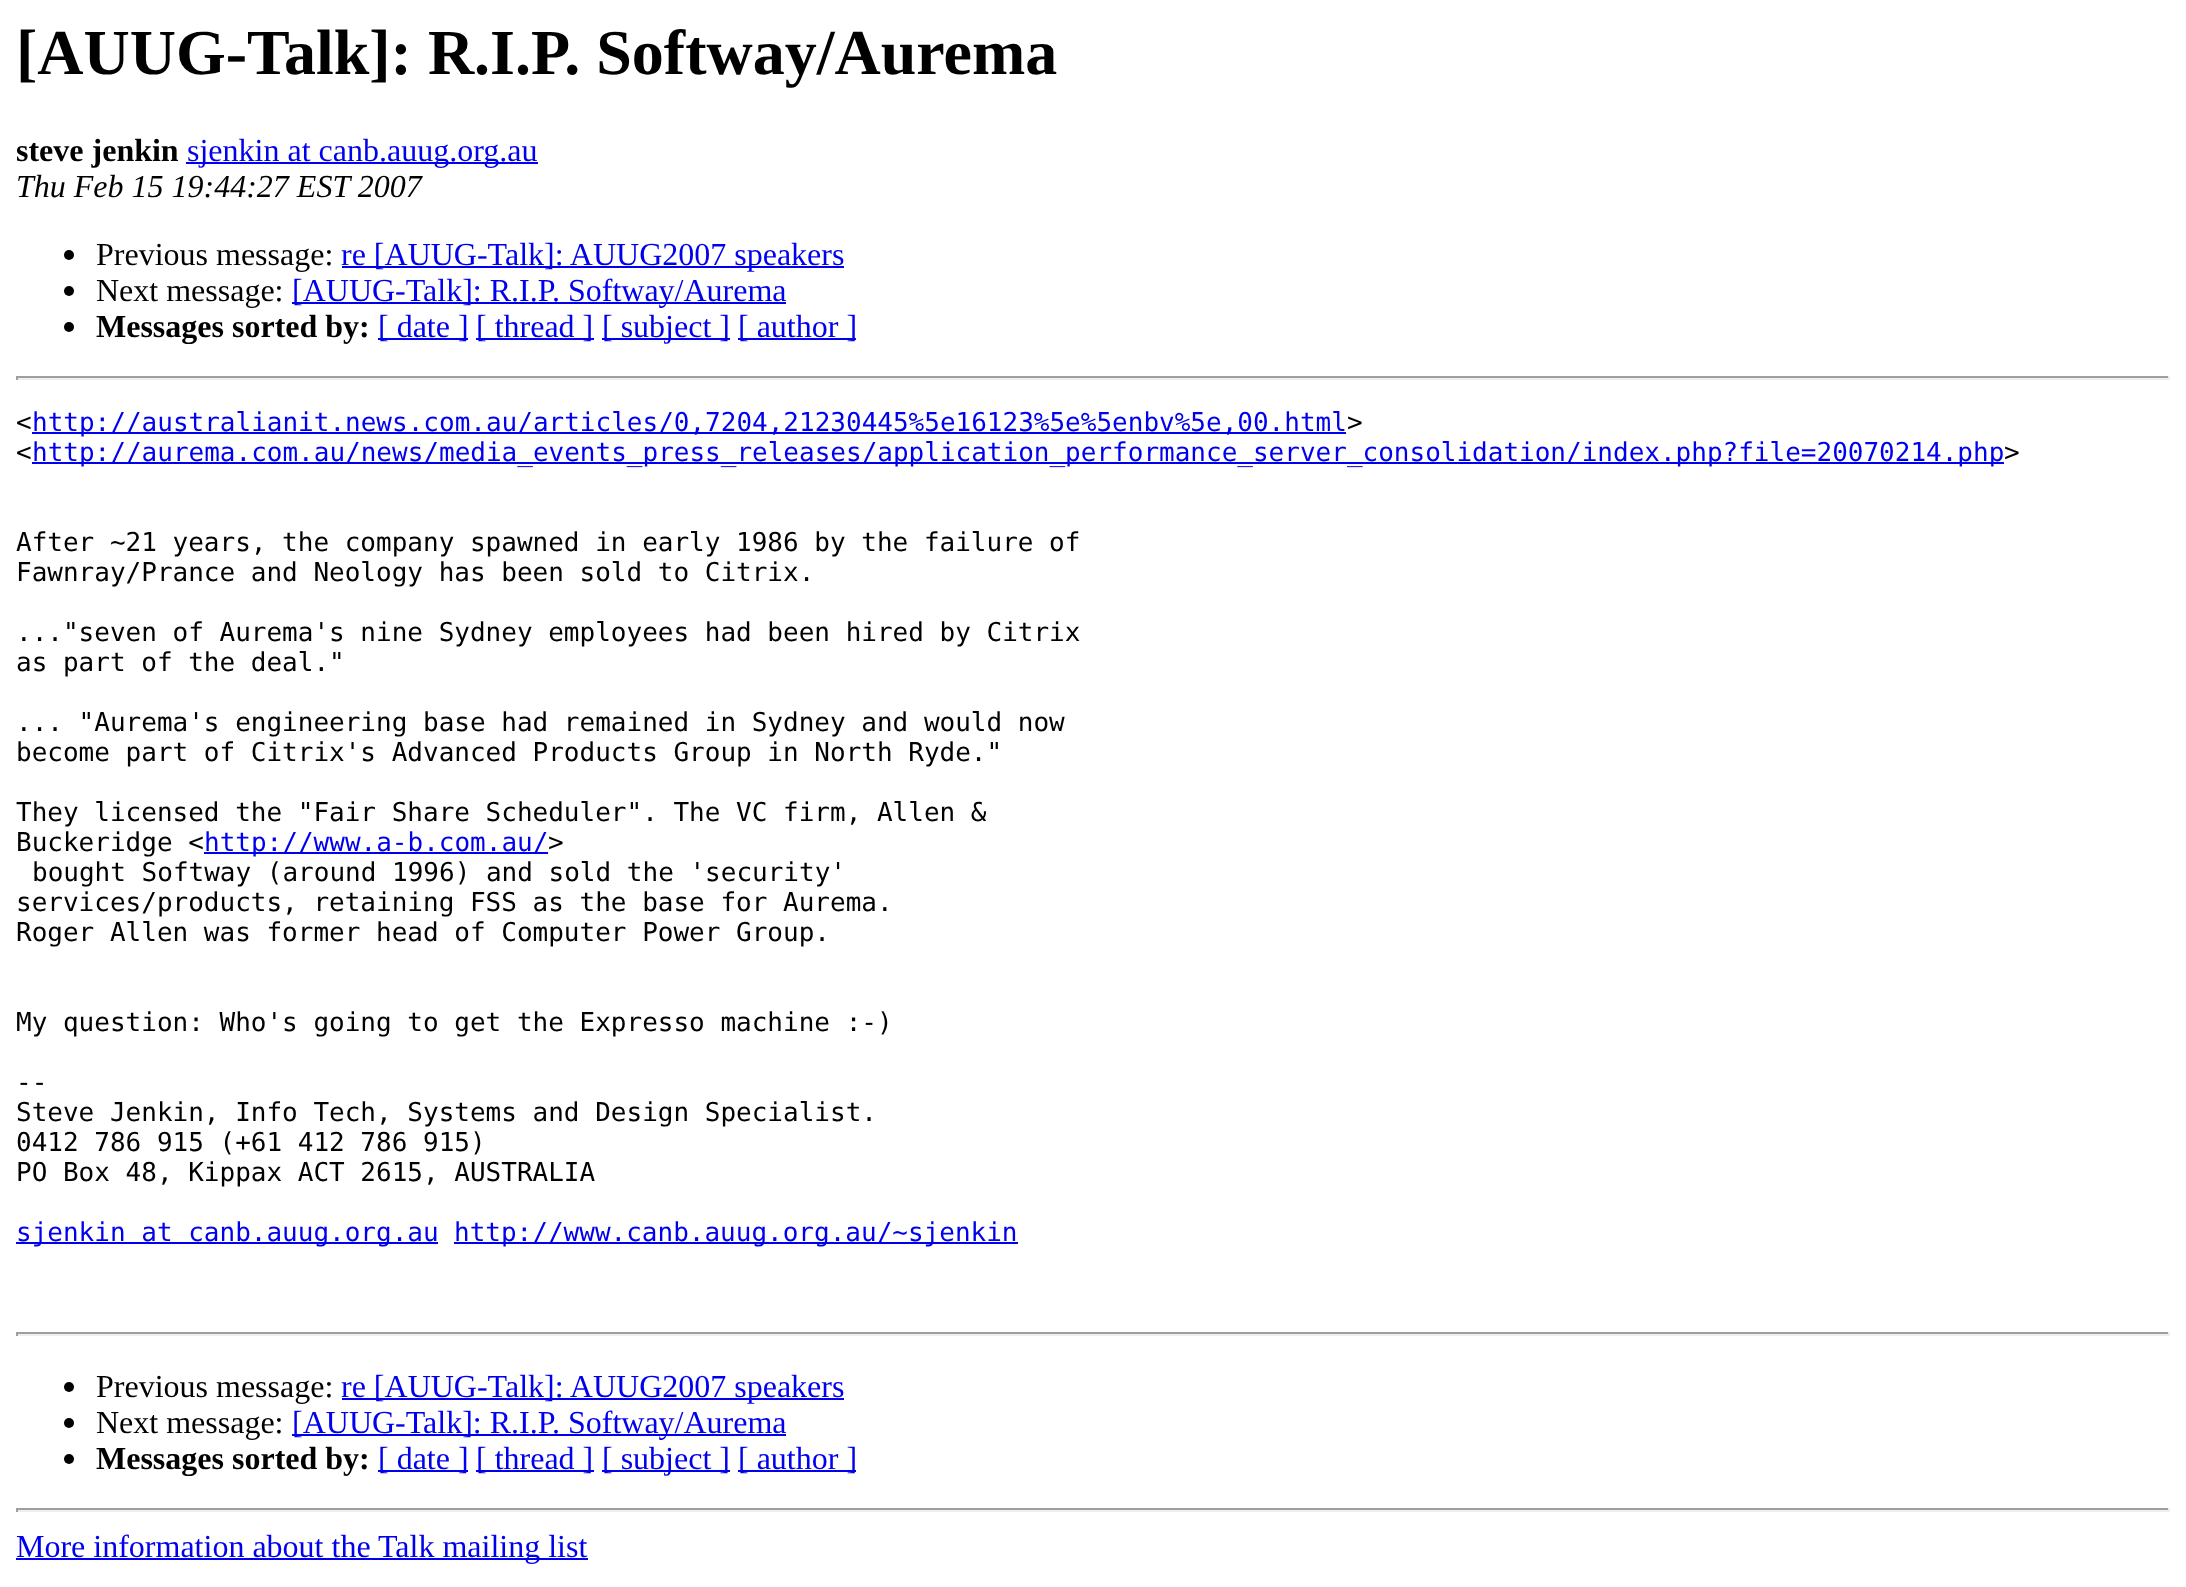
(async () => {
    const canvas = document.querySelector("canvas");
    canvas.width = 2186;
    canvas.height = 1587;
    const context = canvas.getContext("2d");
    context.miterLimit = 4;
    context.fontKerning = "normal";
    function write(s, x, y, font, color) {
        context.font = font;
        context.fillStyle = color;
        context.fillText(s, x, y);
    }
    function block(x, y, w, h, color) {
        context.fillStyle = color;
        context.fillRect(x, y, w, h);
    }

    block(0, 0, 2186, 1587, "rgb(255, 255, 255)");
    write("[AUUG-Talk]: R.I.P. Softway/Aurema", 16, 74, "bold 64px Liberation Serif", "rgb(0, 0, 0)");
    write("steve jenkin", 16, 161, "bold 32px Liberation Serif", "rgb(0, 0, 0)");
    block(186, 162, 352, 2, "rgb(0, 0, 238)");
    write("sjenkin at canb.auug.org.au", 187, 161, "32px Liberation Serif", "rgb(0, 0, 238)");
    write("Thu Feb 15 19:44:27 EST 2007", 16, 197, "italic 32px Liberation Serif", "rgb(0, 0, 0)");
    context.beginPath();
    context.arc(69, 255, 5, 0, Math.PI * 2);
    context.fill();
    write("Previous message:", 96, 265, "32px Liberation Serif", "rgb(0, 0, 0)");
    block(342, 266, 502, 2, "rgb(0, 0, 238)");
    write("re [AUUG-Talk]: AUUG2007 speakers", 341, 265, "32px Liberation Serif", "rgb(0, 0, 238)");
    context.fillStyle = "rgb(0, 0, 0)";
    context.beginPath();
    context.arc(69, 291, 5, 0, Math.PI * 2);
    context.fill();
    write("Next message:", 96, 301, "32px Liberation Serif", "rgb(0, 0, 0)");
    block(292, 302, 494, 2, "rgb(0, 0, 238)");
    write("[AUUG-Talk]: R.I.P. Softway/Aurema", 292, 301, "32px Liberation Serif", "rgb(0, 0, 238)");
    context.fillStyle = "rgb(0, 0, 0)";
    context.beginPath();
    context.arc(69, 327, 5, 0, Math.PI * 2);
    context.fill();
    write("Messages sorted by:", 96, 337, "bold 32px Liberation Serif", "rgb(0, 0, 0)");
    block(378, 338, 90, 2, "rgb(0, 0, 238)");
    write("[ date ]", 378, 337, "32px Liberation Serif", "rgb(0, 0, 238)");
    block(476, 338, 118, 2, "rgb(0, 0, 238)");
    write("[ thread ]", 476, 337, "32px Liberation Serif", "rgb(0, 0, 238)");
    block(602, 338, 128, 2, "rgb(0, 0, 238)");
    write("[ subject ]", 602, 337, "32px Liberation Serif", "rgb(0, 0, 238)");
    block(738, 338, 118, 2, "rgb(0, 0, 238)");
    write("[ author ]", 738, 337, "32px Liberation Serif", "rgb(0, 0, 238)");
    block(16, 376, 2154, 2, "rgb(159, 159, 159)");
    block(2168, 376, 2, 4, "rgb(238, 238, 238)");
    block(16, 378, 2154, 2, "rgb(238, 238, 238)");
    block(16, 376, 2, 4, "rgb(159, 159, 159)");
    write("<", 16, 431, "26px DejaVu Sans Mono", "rgb(0, 0, 0)");
    block(32, 432, 1314, 2, "rgb(0, 0, 238)");
    write("http://australianit.news.com.au/articles/0,7204,21230445%5e16123%5e%5enbv%5e,00.html", 32, 431, "26px DejaVu Sans Mono", "rgb(0, 0, 238)");
    write(">", 1347, 431, "26px DejaVu Sans Mono", "rgb(0, 0, 0)");
    write("<", 16, 461, "26px DejaVu Sans Mono", "rgb(0, 0, 0)");
    block(32, 462, 1972, 2, "rgb(0, 0, 238)");
    write("http://aurema.com.au/news/media_events_press_releases/application_performance_server_consolidation/index.php?file=20070214.php", 32, 461, "26px DejaVu Sans Mono", "rgb(0, 0, 238)");
    write(">", 2004, 461, "26px DejaVu Sans Mono", "rgb(0, 0, 0)");
    write("After ~21 years, the company spawned in early 1986 by the failure of", 16, 551, "26px DejaVu Sans Mono", "rgb(0, 0, 0)");
    write("Fawnray/Prance and Neology has been sold to Citrix.", 16, 581, "26px DejaVu Sans Mono", "rgb(0, 0, 0)");
    write("...\"seven of Aurema's nine Sydney employees had been hired by Citrix", 16, 641, "26px DejaVu Sans Mono", "rgb(0, 0, 0)");
    write("as part of the deal.\"", 16, 671, "26px DejaVu Sans Mono", "rgb(0, 0, 0)");
    write("... \"Aurema's engineering base had remained in Sydney and would now", 16, 731, "26px DejaVu Sans Mono", "rgb(0, 0, 0)");
    write("become part of Citrix's Advanced Products Group in North Ryde.\"", 16, 761, "26px DejaVu Sans Mono", "rgb(0, 0, 0)");
    write("They licensed the \"Fair Share Scheduler\". The VC firm, Allen &", 16, 821, "26px DejaVu Sans Mono", "rgb(0, 0, 0)");
    write("Buckeridge <", 16, 851, "26px DejaVu Sans Mono", "rgb(0, 0, 0)");
    block(204, 852, 344, 2, "rgb(0, 0, 238)");
    write("http://www.a-b.com.au/", 204, 851, "26px DejaVu Sans Mono", "rgb(0, 0, 238)");
    write(">", 548, 851, "26px DejaVu Sans Mono", "rgb(0, 0, 0)");
    write("bought Softway (around 1996) and sold the 'security'", 32, 881, "26px DejaVu Sans Mono", "rgb(0, 0, 0)");
    write("services/products, retaining FSS as the base for Aurema.", 16, 911, "26px DejaVu Sans Mono", "rgb(0, 0, 0)");
    write("Roger Allen was former head of Computer Power Group.", 16, 941, "26px DejaVu Sans Mono", "rgb(0, 0, 0)");
    write("My question: Who's going to get the Expresso machine :-)", 16, 1031, "26px DejaVu Sans Mono", "rgb(0, 0, 0)");
    write("--", 16, 1091, "26px DejaVu Sans Mono", "rgb(0, 0, 0)");
    write("Steve Jenkin, Info Tech, Systems and Design Specialist.", 16, 1121, "26px DejaVu Sans Mono", "rgb(0, 0, 0)");
    write("0412 786 915 (+61 412 786 915)", 16, 1151, "26px DejaVu Sans Mono", "rgb(0, 0, 0)");
    write("PO Box 48, Kippax ACT 2615, AUSTRALIA", 16, 1181, "26px DejaVu Sans Mono", "rgb(0, 0, 0)");
    block(16, 1242, 422, 2, "rgb(0, 0, 238)");
    write("sjenkin at canb.auug.org.au", 16, 1241, "26px DejaVu Sans Mono", "rgb(0, 0, 238)");
    block(454, 1242, 564, 2, "rgb(0, 0, 238)");
    write("http://www.canb.auug.org.au/~sjenkin", 454, 1241, "26px DejaVu Sans Mono", "rgb(0, 0, 238)");
    block(16, 1332, 2154, 2, "rgb(159, 159, 159)");
    block(2168, 1332, 2, 4, "rgb(238, 238, 238)");
    block(16, 1334, 2154, 2, "rgb(238, 238, 238)");
    block(16, 1332, 2, 4, "rgb(159, 159, 159)");
    context.fillStyle = "rgb(0, 0, 0)";
    context.beginPath();
    context.arc(69, 1387, 5, 0, Math.PI * 2);
    context.fill();
    write("Previous message:", 96, 1397, "32px Liberation Serif", "rgb(0, 0, 0)");
    block(342, 1398, 502, 2, "rgb(0, 0, 238)");
    write("re [AUUG-Talk]: AUUG2007 speakers", 341, 1397, "32px Liberation Serif", "rgb(0, 0, 238)");
    context.fillStyle = "rgb(0, 0, 0)";
    context.beginPath();
    context.arc(69, 1423, 5, 0, Math.PI * 2);
    context.fill();
    write("Next message:", 96, 1433, "32px Liberation Serif", "rgb(0, 0, 0)");
    block(292, 1434, 494, 2, "rgb(0, 0, 238)");
    write("[AUUG-Talk]: R.I.P. Softway/Aurema", 292, 1433, "32px Liberation Serif", "rgb(0, 0, 238)");
    context.fillStyle = "rgb(0, 0, 0)";
    context.beginPath();
    context.arc(69, 1459, 5, 0, Math.PI * 2);
    context.fill();
    write("Messages sorted by:", 96, 1469, "bold 32px Liberation Serif", "rgb(0, 0, 0)");
    block(378, 1470, 90, 2, "rgb(0, 0, 238)");
    write("[ date ]", 378, 1469, "32px Liberation Serif", "rgb(0, 0, 238)");
    block(476, 1470, 118, 2, "rgb(0, 0, 238)");
    write("[ thread ]", 476, 1469, "32px Liberation Serif", "rgb(0, 0, 238)");
    block(602, 1470, 128, 2, "rgb(0, 0, 238)");
    write("[ subject ]", 602, 1469, "32px Liberation Serif", "rgb(0, 0, 238)");
    block(738, 1470, 118, 2, "rgb(0, 0, 238)");
    write("[ author ]", 738, 1469, "32px Liberation Serif", "rgb(0, 0, 238)");
    block(16, 1508, 2154, 2, "rgb(159, 159, 159)");
    block(2168, 1508, 2, 4, "rgb(238, 238, 238)");
    block(16, 1510, 2154, 2, "rgb(238, 238, 238)");
    block(16, 1508, 2, 4, "rgb(159, 159, 159)");
    block(16, 1558, 572, 2, "rgb(0, 0, 238)");
    write("More information about the Talk mailing list", 16, 1557, "32px Liberation Serif", "rgb(0, 0, 238)");
})();
